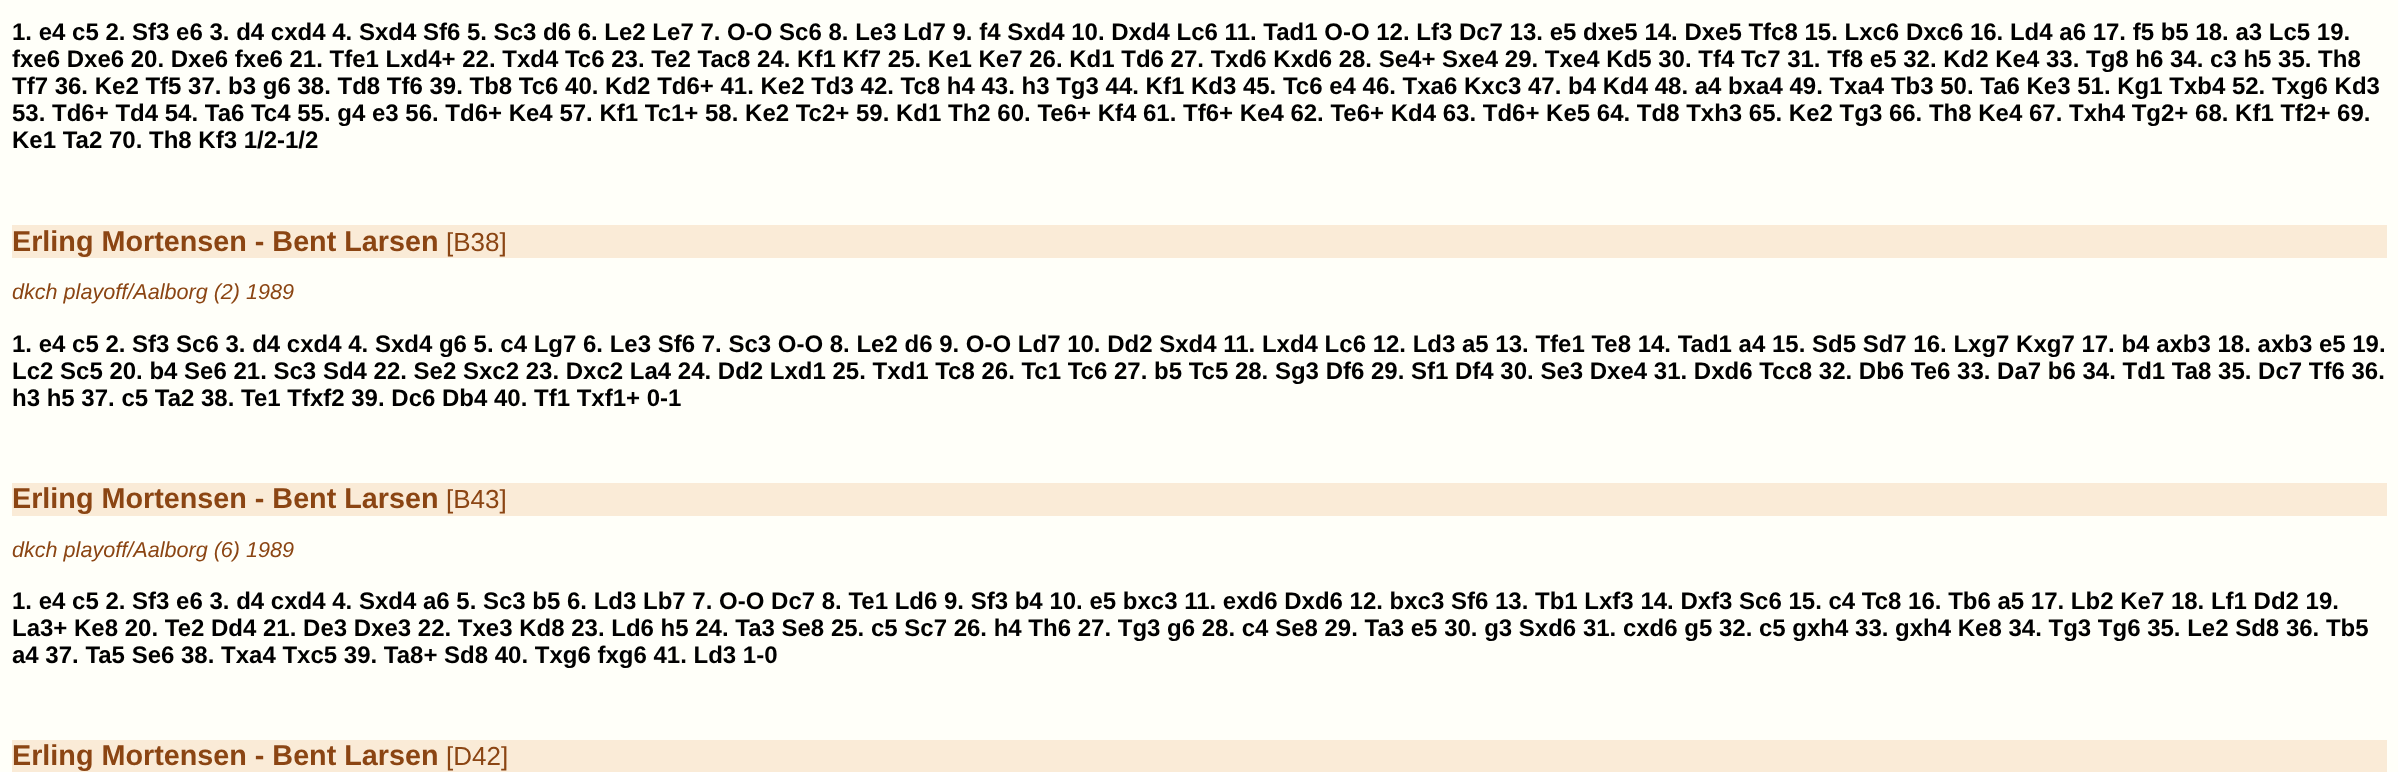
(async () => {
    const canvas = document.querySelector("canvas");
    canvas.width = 2398;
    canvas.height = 772;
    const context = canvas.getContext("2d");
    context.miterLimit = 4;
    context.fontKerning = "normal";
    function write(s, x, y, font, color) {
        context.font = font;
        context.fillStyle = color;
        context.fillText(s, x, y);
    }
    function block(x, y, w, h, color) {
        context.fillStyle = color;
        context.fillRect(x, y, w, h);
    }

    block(0, 0, 2398, 772, "rgb(255, 255, 249)");
    write("1. e4 c5 2. Sf3 e6 3. d4 cxd4 4. Sxd4 Sf6 5. Sc3 d6 6. Le2 Le7 7. O-O Sc6 8. Le3 Ld7 9. f4 Sxd4 10. Dxd4 Lc6 11. Tad1 O-O 12. Lf3 Dc7 13. e5 dxe5 14. Dxe5 Tfc8 15. Lxc6 Dxc6 16. Ld4 a6 17. f5 b5 18. a3 Lc5 19.", 12, 40, "bold 24px Liberation Sans", "rgb(0, 0, 0)");
    write("fxe6 Dxe6 20. Dxe6 fxe6 21. Tfe1 Lxd4+ 22. Txd4 Tc6 23. Te2 Tac8 24. Kf1 Kf7 25. Ke1 Ke7 26. Kd1 Td6 27. Txd6 Kxd6 28. Se4+ Sxe4 29. Txe4 Kd5 30. Tf4 Tc7 31. Tf8 e5 32. Kd2 Ke4 33. Tg8 h6 34. c3 h5 35. Th8", 12, 67, "bold 24px Liberation Sans", "rgb(0, 0, 0)");
    write("Tf7 36. Ke2 Tf5 37. b3 g6 38. Td8 Tf6 39. Tb8 Tc6 40. Kd2 Td6+ 41. Ke2 Td3 42. Tc8 h4 43. h3 Tg3 44. Kf1 Kd3 45. Tc6 e4 46. Txa6 Kxc3 47. b4 Kd4 48. a4 bxa4 49. Txa4 Tb3 50. Ta6 Ke3 51. Kg1 Txb4 52. Txg6 Kd3", 12, 94, "bold 24px Liberation Sans", "rgb(0, 0, 0)");
    write("53. Td6+ Td4 54. Ta6 Tc4 55. g4 e3 56. Td6+ Ke4 57. Kf1 Tc1+ 58. Ke2 Tc2+ 59. Kd1 Th2 60. Te6+ Kf4 61. Tf6+ Ke4 62. Te6+ Kd4 63. Td6+ Ke5 64. Td8 Txh3 65. Ke2 Tg3 66. Th8 Ke4 67. Txh4 Tg2+ 68. Kf1 Tf2+ 69.", 12, 121, "bold 24px Liberation Sans", "rgb(0, 0, 0)");
    write("Ke1 Ta2 70. Th8 Kf3 1/2-1/2", 12, 148, "bold 24px Liberation Sans", "rgb(0, 0, 0)");
    block(12, 225, 2375, 33, "rgb(250, 235, 215)");
    write("Erling Mortensen - Bent Larsen", 12, 251, "bold 28.75px Liberation Sans", "rgb(139, 69, 19)");
    write("[B38]", 446, 251, "26px Liberation Sans", "rgb(139, 69, 19)");
    write("dkch playoff/Aalborg (2) 1989", 12, 299, "italic 21.6px Liberation Sans", "rgb(139, 69, 19)");
    write("1. e4 c5 2. Sf3 Sc6 3. d4 cxd4 4. Sxd4 g6 5. c4 Lg7 6. Le3 Sf6 7. Sc3 O-O 8. Le2 d6 9. O-O Ld7 10. Dd2 Sxd4 11. Lxd4 Lc6 12. Ld3 a5 13. Tfe1 Te8 14. Tad1 a4 15. Sd5 Sd7 16. Lxg7 Kxg7 17. b4 axb3 18. axb3 e5 19.", 12, 352, "bold 24px Liberation Sans", "rgb(0, 0, 0)");
    write("Lc2 Sc5 20. b4 Se6 21. Sc3 Sd4 22. Se2 Sxc2 23. Dxc2 La4 24. Dd2 Lxd1 25. Txd1 Tc8 26. Tc1 Tc6 27. b5 Tc5 28. Sg3 Df6 29. Sf1 Df4 30. Se3 Dxe4 31. Dxd6 Tcc8 32. Db6 Te6 33. Da7 b6 34. Td1 Ta8 35. Dc7 Tf6 36.", 12, 379, "bold 24px Liberation Sans", "rgb(0, 0, 0)");
    write("h3 h5 37. c5 Ta2 38. Te1 Tfxf2 39. Dc6 Db4 40. Tf1 Txf1+ 0-1", 12, 406, "bold 24px Liberation Sans", "rgb(0, 0, 0)");
    block(12, 483, 2375, 33, "rgb(250, 235, 215)");
    write("Erling Mortensen - Bent Larsen", 12, 508, "bold 28.75px Liberation Sans", "rgb(139, 69, 19)");
    write("[B43]", 446, 508, "26px Liberation Sans", "rgb(139, 69, 19)");
    write("dkch playoff/Aalborg (6) 1989", 12, 557, "italic 21.6px Liberation Sans", "rgb(139, 69, 19)");
    write("1. e4 c5 2. Sf3 e6 3. d4 cxd4 4. Sxd4 a6 5. Sc3 b5 6. Ld3 Lb7 7. O-O Dc7 8. Te1 Ld6 9. Sf3 b4 10. e5 bxc3 11. exd6 Dxd6 12. bxc3 Sf6 13. Tb1 Lxf3 14. Dxf3 Sc6 15. c4 Tc8 16. Tb6 a5 17. Lb2 Ke7 18. Lf1 Dd2 19.", 12, 609, "bold 24px Liberation Sans", "rgb(0, 0, 0)");
    write("La3+ Ke8 20. Te2 Dd4 21. De3 Dxe3 22. Txe3 Kd8 23. Ld6 h5 24. Ta3 Se8 25. c5 Sc7 26. h4 Th6 27. Tg3 g6 28. c4 Se8 29. Ta3 e5 30. g3 Sxd6 31. cxd6 g5 32. c5 gxh4 33. gxh4 Ke8 34. Tg3 Tg6 35. Le2 Sd8 36. Tb5", 12, 636, "bold 24px Liberation Sans", "rgb(0, 0, 0)");
    write("a4 37. Ta5 Se6 38. Txa4 Txc5 39. Ta8+ Sd8 40. Txg6 fxg6 41. Ld3 1-0", 12, 663, "bold 24px Liberation Sans", "rgb(0, 0, 0)");
    block(12, 740, 2375, 32, "rgb(250, 235, 215)");
    write("Erling Mortensen - Bent Larsen", 12, 765, "bold 28.75px Liberation Sans", "rgb(139, 69, 19)");
    write("[D42]", 446, 765, "26px Liberation Sans", "rgb(139, 69, 19)");
})();
